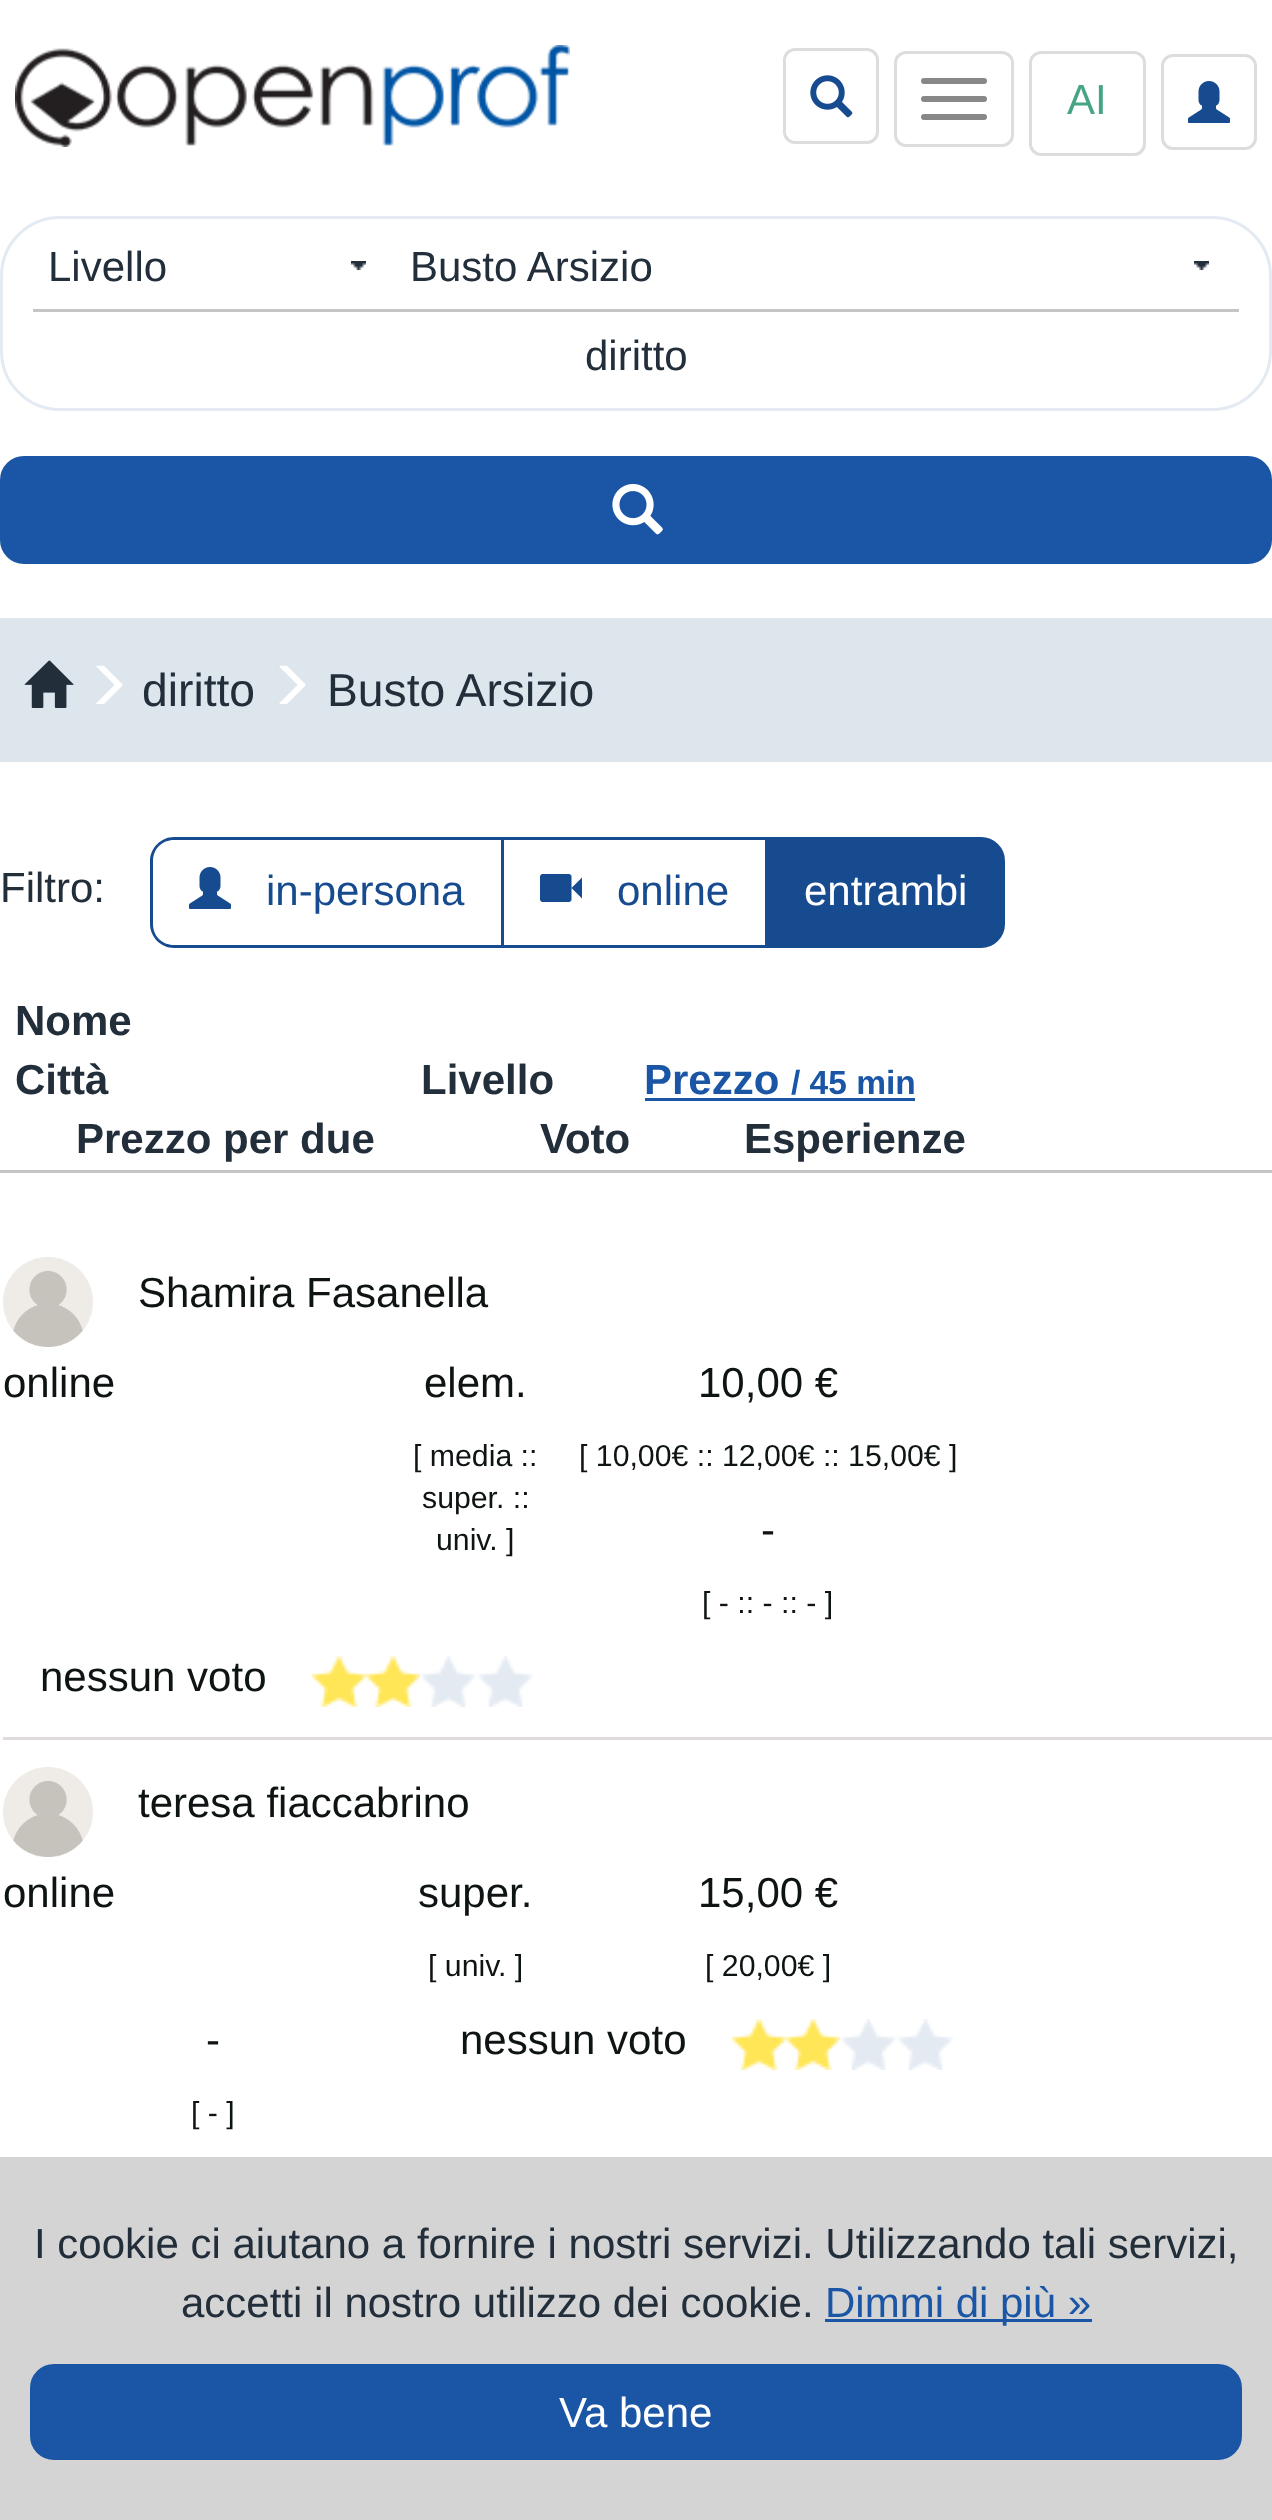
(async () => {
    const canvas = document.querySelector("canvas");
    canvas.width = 1272;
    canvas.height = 2520;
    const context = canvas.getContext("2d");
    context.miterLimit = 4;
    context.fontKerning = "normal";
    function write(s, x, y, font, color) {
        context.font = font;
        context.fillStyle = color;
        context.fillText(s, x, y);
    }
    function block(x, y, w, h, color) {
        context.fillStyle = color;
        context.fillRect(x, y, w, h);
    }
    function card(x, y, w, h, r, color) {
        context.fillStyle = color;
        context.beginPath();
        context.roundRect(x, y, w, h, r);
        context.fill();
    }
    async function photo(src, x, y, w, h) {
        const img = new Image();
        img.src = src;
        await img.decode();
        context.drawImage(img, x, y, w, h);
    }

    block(0, 0, 1272, 2520, "rgb(255, 255, 255)");
    await photo("media/1.png", 15, 45, 555, 102);
    context.beginPath();
    context.roundRect(784.5, 49.5, 93, 93, 10.5);
    context.strokeStyle = "rgb(221, 221, 221)";
    context.lineWidth = 3;
    context.stroke();
    await photo("media/2.png", 810, 75, 43, 43);
    context.beginPath();
    context.roundRect(895.5, 52.5, 117, 93, 10.5);
    context.stroke();
    card(921, 78, 66, 6, 3, "rgb(136, 136, 136)");
    card(921, 96, 66, 6, 3, "rgb(136, 136, 136)");
    card(921, 114, 66, 6, 3, "rgb(136, 136, 136)");
    context.beginPath();
    context.roundRect(1030.5, 52.5, 114, 102, 10.5);
    context.stroke();
    write("AI", 1067, 114, "42px Liberation Sans", "rgb(71, 164, 134)");
    context.beginPath();
    context.roundRect(1162.5, 55.5, 93, 93, 10.5);
    context.stroke();
    await photo("media/3.png", 1188, 81, 42, 42);
    context.beginPath();
    context.roundRect(1.5, 217.5, 1269, 192, 58.5);
    context.strokeStyle = "rgb(227, 234, 242)";
    context.stroke();
    await photo("media/4.png", 351, 261, 15, 9);
    write("Livello", 48, 281, "42px Liberation Sans", "rgb(35, 46, 59)");
    await photo("media/4.png", 1194, 261, 15, 9);
    write("Busto Arsizio", 410, 281, "42px Liberation Sans", "rgb(35, 46, 59)");
    block(33, 309, 1206, 3, "rgb(197, 197, 197)");
    block(33, 401, 1206, 1, "rgb(255, 255, 255)");
    write("diritto", 585, 370, "42px Liberation Sans", "rgb(35, 46, 59)");
    context.fillStyle = "rgb(26, 86, 165)";
    context.beginPath();
    context.roundRect(1.5, 457.5, 1269, 105, 22.5);
    context.fill();
    context.strokeStyle = "rgb(26, 86, 165)";
    context.stroke();
    await photo("media/5.png", 612, 484, 51, 51);
    block(0, 618, 1272, 144, "rgb(221, 229, 237)");
    await photo("media/6.png", 24, 660, 50, 48);
    await photo("media/7.png", 96, 665, 27, 39);
    write("diritto", 142, 706, "46.25px Liberation Sans", "rgb(35, 46, 59)");
    await photo("media/7.png", 279, 665, 27, 39);
    write("Busto Arsizio", 327, 706, "46.25px Liberation Sans", "rgb(35, 46, 59)");
    write("Filtro:", 0, 902, "42px Liberation Sans", "rgb(35, 46, 59)");
    context.fillStyle = "rgb(23, 75, 143)";
    context.beginPath();
    context.moveTo(174, 837);
    context.lineTo(501, 837);
    context.lineTo(501, 948);
    context.lineTo(174, 948);
    context.bezierCurveTo(161, 948, 150, 937, 150, 924);
    context.lineTo(150, 861);
    context.bezierCurveTo(150, 848, 161, 837, 174, 837);
    context.closePath();
    context.moveTo(174, 840);
    context.lineTo(501, 840);
    context.lineTo(501, 945);
    context.lineTo(174, 945);
    context.bezierCurveTo(162, 945, 153, 936, 153, 924);
    context.lineTo(153, 861);
    context.bezierCurveTo(153, 849, 162, 840, 174, 840);
    context.closePath();
    context.fill("evenodd");
    await photo("media/3.png", 189, 867, 42, 42);
    write("in-persona", 266, 905, "42px Liberation Sans", "rgb(23, 75, 143)");
    block(501, 837, 264, 3, "rgb(23, 75, 143)");
    block(501, 945, 264, 3, "rgb(23, 75, 143)");
    block(501, 837, 3, 111, "rgb(23, 75, 143)");
    await photo("media/8.png", 540, 874, 42, 28);
    write("online", 617, 905, "42px Liberation Sans", "rgb(23, 75, 143)");
    context.beginPath();
    context.roundRect(766.5, 838.5, 237, 108, [0, 22.5, 22.5, 0]);
    context.fill();
    context.strokeStyle = "rgb(23, 75, 143)";
    context.stroke();
    write("entrambi", 804, 905, "42px Liberation Sans", "rgb(255, 255, 255)");
    block(0, 1170, 1272, 3, "rgb(197, 197, 197)");
    write("Nome", 15, 1035, "bold 42px Liberation Sans", "rgb(35, 46, 59)");
    write("Città", 15, 1094, "bold 42px Liberation Sans", "rgb(35, 46, 59)");
    write("Livello", 421, 1094, "bold 42px Liberation Sans", "rgb(35, 46, 59)");
    write("Prezzo", 644, 1094, "bold 42px Liberation Sans", "rgb(26, 86, 165)");
    write("/ 45 min", 791, 1094, "bold 33.5px Liberation Sans", "rgb(26, 86, 165)");
    block(645, 1098, 270, 3, "rgb(26, 86, 165)");
    write("Prezzo per due", 76, 1153, "bold 42px Liberation Sans", "rgb(35, 46, 59)");
    write("Voto", 540, 1153, "bold 42px Liberation Sans", "rgb(35, 46, 59)");
    write("Esperienze", 744, 1153, "bold 42px Liberation Sans", "rgb(35, 46, 59)");
    block(0, 1737, 1272, 3, "rgb(223, 219, 219)");
    block(0, 1737, 3, 3, "rgb(255, 255, 255)");
    await photo("media/9.png", 3, 1257, 90, 90);
    write("Shamira Fasanella", 138, 1307, "42px Liberation Sans", "rgb(14, 19, 20)");
    write("online", 3, 1397, "42px Liberation Sans", "rgb(14, 19, 20)");
    write("elem.", 424, 1397, "42px Liberation Sans", "rgb(14, 19, 20)");
    write("[ media ::", 413, 1466, "30.25px Liberation Sans", "rgb(14, 19, 20)");
    write("super. ::", 422, 1508, "30.25px Liberation Sans", "rgb(14, 19, 20)");
    write("univ. ]", 436, 1550, "30.25px Liberation Sans", "rgb(14, 19, 20)");
    write("10,00 €", 698, 1397, "42px Liberation Sans", "rgb(14, 19, 20)");
    write("[ 10,00€ :: 12,00€ :: 15,00€ ]", 579, 1466, "30.25px Liberation Sans", "rgb(14, 19, 20)");
    write("-", 761, 1544, "42px Liberation Sans", "rgb(14, 19, 20)");
    write("[ - :: - :: - ]", 702, 1613, "30.25px Liberation Sans", "rgb(14, 19, 20)");
    write("nessun voto", 40, 1691, "42px Liberation Sans", "rgb(14, 19, 20)");
    await photo("media/10.png", 312, 1656, 54, 51);
    await photo("media/10.png", 366, 1656, 54, 51);
    await photo("media/11.png", 420, 1656, 57, 51);
    await photo("media/12.png", 477, 1656, 57, 51);
    await photo("media/9.png", 3, 1767, 90, 90);
    write("teresa fiaccabrino", 138, 1817, "42px Liberation Sans", "rgb(14, 19, 20)");
    write("online", 3, 1907, "42px Liberation Sans", "rgb(14, 19, 20)");
    write("super.", 418, 1907, "42px Liberation Sans", "rgb(14, 19, 20)");
    write("[ univ. ]", 428, 1976, "30.25px Liberation Sans", "rgb(14, 19, 20)");
    write("15,00 €", 698, 1907, "42px Liberation Sans", "rgb(14, 19, 20)");
    write("[ 20,00€ ]", 705, 1976, "30.25px Liberation Sans", "rgb(14, 19, 20)");
    write("-", 206, 2054, "42px Liberation Sans", "rgb(14, 19, 20)");
    write("[ - ]", 191, 2123, "30.25px Liberation Sans", "rgb(14, 19, 20)");
    write("nessun voto", 460, 2054, "42px Liberation Sans", "rgb(14, 19, 20)");
    await photo("media/13.png", 732, 2019, 54, 51);
    await photo("media/14.png", 786, 2019, 54, 51);
    await photo("media/15.png", 840, 2019, 57, 51);
    await photo("media/15.png", 897, 2019, 57, 51);
    block(0, 2157, 1272, 363, "rgb(212, 212, 212)");
    write("I cookie ci aiutano a fornire i nostri servizi. Utilizzando tali servizi,", 34, 2258, "42px Liberation Sans", "rgb(35, 46, 59)");
    write("accetti il nostro utilizzo dei cookie.", 181, 2317, "42px Liberation Sans", "rgb(35, 46, 59)");
    block(825, 2319, 267, 3, "rgb(26, 86, 165)");
    write("Dimmi di più »", 825, 2317, "42px Liberation Sans", "rgb(26, 86, 165)");
    context.beginPath();
    context.roundRect(31.5, 2365.5, 1209, 93, 22.5);
    context.fill();
    context.strokeStyle = "rgb(26, 86, 165)";
    context.stroke();
    write("Va bene", 559, 2427, "42px Liberation Sans", "rgb(255, 255, 255)");
})();
